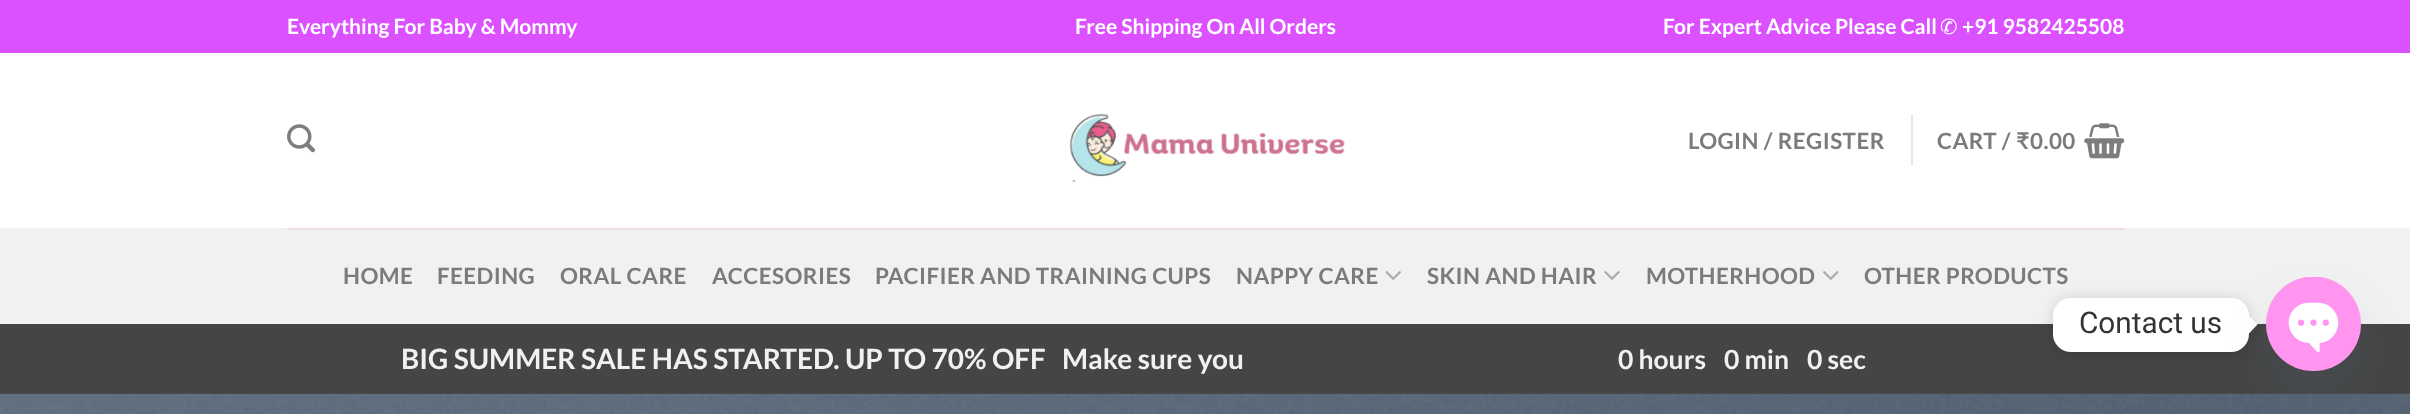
(async () => {
    const canvas = document.querySelector("canvas");
    canvas.width = 2410;
    canvas.height = 414;
    const context = canvas.getContext("2d");
    context.miterLimit = 4;
    context.fontKerning = "normal";
    function write(s, x, y, font, color) {
        context.font = font;
        context.fillStyle = color;
        context.fillText(s, x, y);
    }
    function block(x, y, w, h, color) {
        context.fillStyle = color;
        context.fillRect(x, y, w, h);
    }
    function card(x, y, w, h, r, color) {
        context.fillStyle = color;
        context.beginPath();
        context.roundRect(x, y, w, h, r);
        context.fill();
    }
    async function photo(src, x, y, w, h) {
        const img = new Image();
        img.src = src;
        await img.decode();
        context.drawImage(img, x, y, w, h);
    }

    block(0, 0, 2410, 414, "rgb(255, 255, 255)");
    block(0, 0, 2410, 53, "rgb(220, 81, 255)");
    write("Everything For Baby & Mommy", 287, 34, "bold 21px Lato", "rgb(255, 255, 255)");
    write("Free Shipping On All Orders", 1075, 34, "bold 21px Lato", "rgb(255, 255, 255)");
    write("For Expert Advice Please Call", 1663, 34, "bold 21px Lato", "rgb(255, 255, 255)");
    write("✆", 1940, 34, "21px DejaVu Sans", "rgb(255, 255, 255)");
    write("+91 9582425508", 1962, 34, "bold 21px Lato", "rgb(255, 255, 255)");
    await photo("media/1.png", 287, 124, 28, 29);
    await photo("media/2.png", 1069, 113, 276, 70);
    context.letterSpacing = "0.45px";
    write("LOGIN / REGISTER", 1688, 149, "bold 22.4px Lato", "rgb(123, 123, 123)");
    block(1911, 114, 2, 52, "rgb(230, 230, 230)");
    write("CART /", 1937, 149, "bold 22.4px Lato", "rgb(123, 123, 123)");
    write("₹", 2016, 149, "bold 22.4px 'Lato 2'", "rgb(123, 123, 123)");
    write("0.00", 2030, 149, "bold 22.4px Lato", "rgb(123, 123, 123)");
    await photo("media/3.png", 2084, 123, 41, 36);
    block(0, 228, 2410, 96, "rgb(241, 241, 241)");
    block(287, 228, 1838, 2, "rgb(239, 222, 222)");
    write("HOME", 343, 284, "bold 22.4px Lato", "rgb(123, 123, 123)");
    write("FEEDING", 437, 284, "bold 22.4px Lato", "rgb(123, 123, 123)");
    write("ORAL CARE", 560, 284, "bold 22.4px Lato", "rgb(123, 123, 123)");
    write("ACCESORIES", 712, 284, "bold 22.4px Lato", "rgb(123, 123, 123)");
    write("PACIFIER AND TRAINING CUPS", 875, 284, "bold 22.4px Lato", "rgb(123, 123, 123)");
    write("NAPPY CARE", 1236, 284, "bold 22.4px Lato", "rgb(123, 123, 123)");
    await photo("media/4.png", 1385, 271, 16, 9);
    write("SKIN AND HAIR", 1427, 284, "bold 22.4px Lato", "rgb(123, 123, 123)");
    await photo("media/5.png", 1604, 271, 16, 9);
    write("MOTHERHOOD", 1646, 284, "bold 22.4px Lato", "rgb(123, 123, 123)");
    await photo("media/6.png", 1823, 271, 16, 9);
    write("OTHER PRODUCTS", 1864, 284, "bold 22.4px Lato", "rgb(123, 123, 123)");
    block(0, 324, 2410, 70, "rgb(69, 69, 69)");
    context.letterSpacing = "0px";
    write("BIG SUMMER SALE HAS STARTED. UP TO 70% OFF", 401, 369, "bold 28px Lato", "rgb(241, 241, 241)");
    write("Make sure you", 1062, 369, "bold 28px Lato", "rgb(241, 241, 241)");
    write("0 hours", 1618, 369, "bold 26.5px Lato", "rgb(241, 241, 241)");
    write("0 min", 1724, 369, "bold 26.5px Lato", "rgb(241, 241, 241)");
    write("0 sec", 1807, 369, "bold 26.5px Lato", "rgb(241, 241, 241)");
    await photo("media/7.png", 0, 393, 2410, 21);
    context.save();
    context.beginPath();
    context.moveTo(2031, 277);
    context.lineTo(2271, 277);
    context.lineTo(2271, 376);
    context.lineTo(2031, 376);
    context.closePath();
    context.moveTo(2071, 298);
    context.lineTo(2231, 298);
    context.bezierCurveTo(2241, 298, 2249, 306, 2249, 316);
    context.lineTo(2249, 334);
    context.bezierCurveTo(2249, 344, 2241, 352, 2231, 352);
    context.lineTo(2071, 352);
    context.bezierCurveTo(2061, 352, 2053, 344, 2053, 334);
    context.lineTo(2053, 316);
    context.bezierCurveTo(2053, 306, 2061, 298, 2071, 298);
    context.closePath();
    context.clip("evenodd");
    context.fillStyle = "rgba(0, 0, 0, 0.15)";
    context.filter = "blur(7px)";
    context.beginPath();
    context.roundRect(2053, 299, 196, 55, 18);
    context.fill();
    context.filter = "none";
    context.restore();
    card(2053, 298, 196, 54, 18, "rgb(255, 255, 255)");
    write("Contact us", 2079, 333, "29.75px Roboto", "rgb(51, 51, 51)");
    context.fillStyle = "rgb(255, 255, 255)";
    context.beginPath();
    context.moveTo(2249, 333.5);
    context.lineTo(2249, 316);
    context.lineTo(2257.5, 324.5);
    context.closePath();
    context.fill();
    context.fillStyle = "rgba(73, 104, 126, 0.16)";
    context.filter = "blur(21px)";
    context.beginPath();
    context.roundRect(2266, 305, 95, 94, 47);
    context.fill();
    context.filter = "none";
    card(2266, 277, 95, 94, 47, "rgb(255, 149, 238)");
    await photo("media/8.png", 2269, 277, 89, 76);
})();
